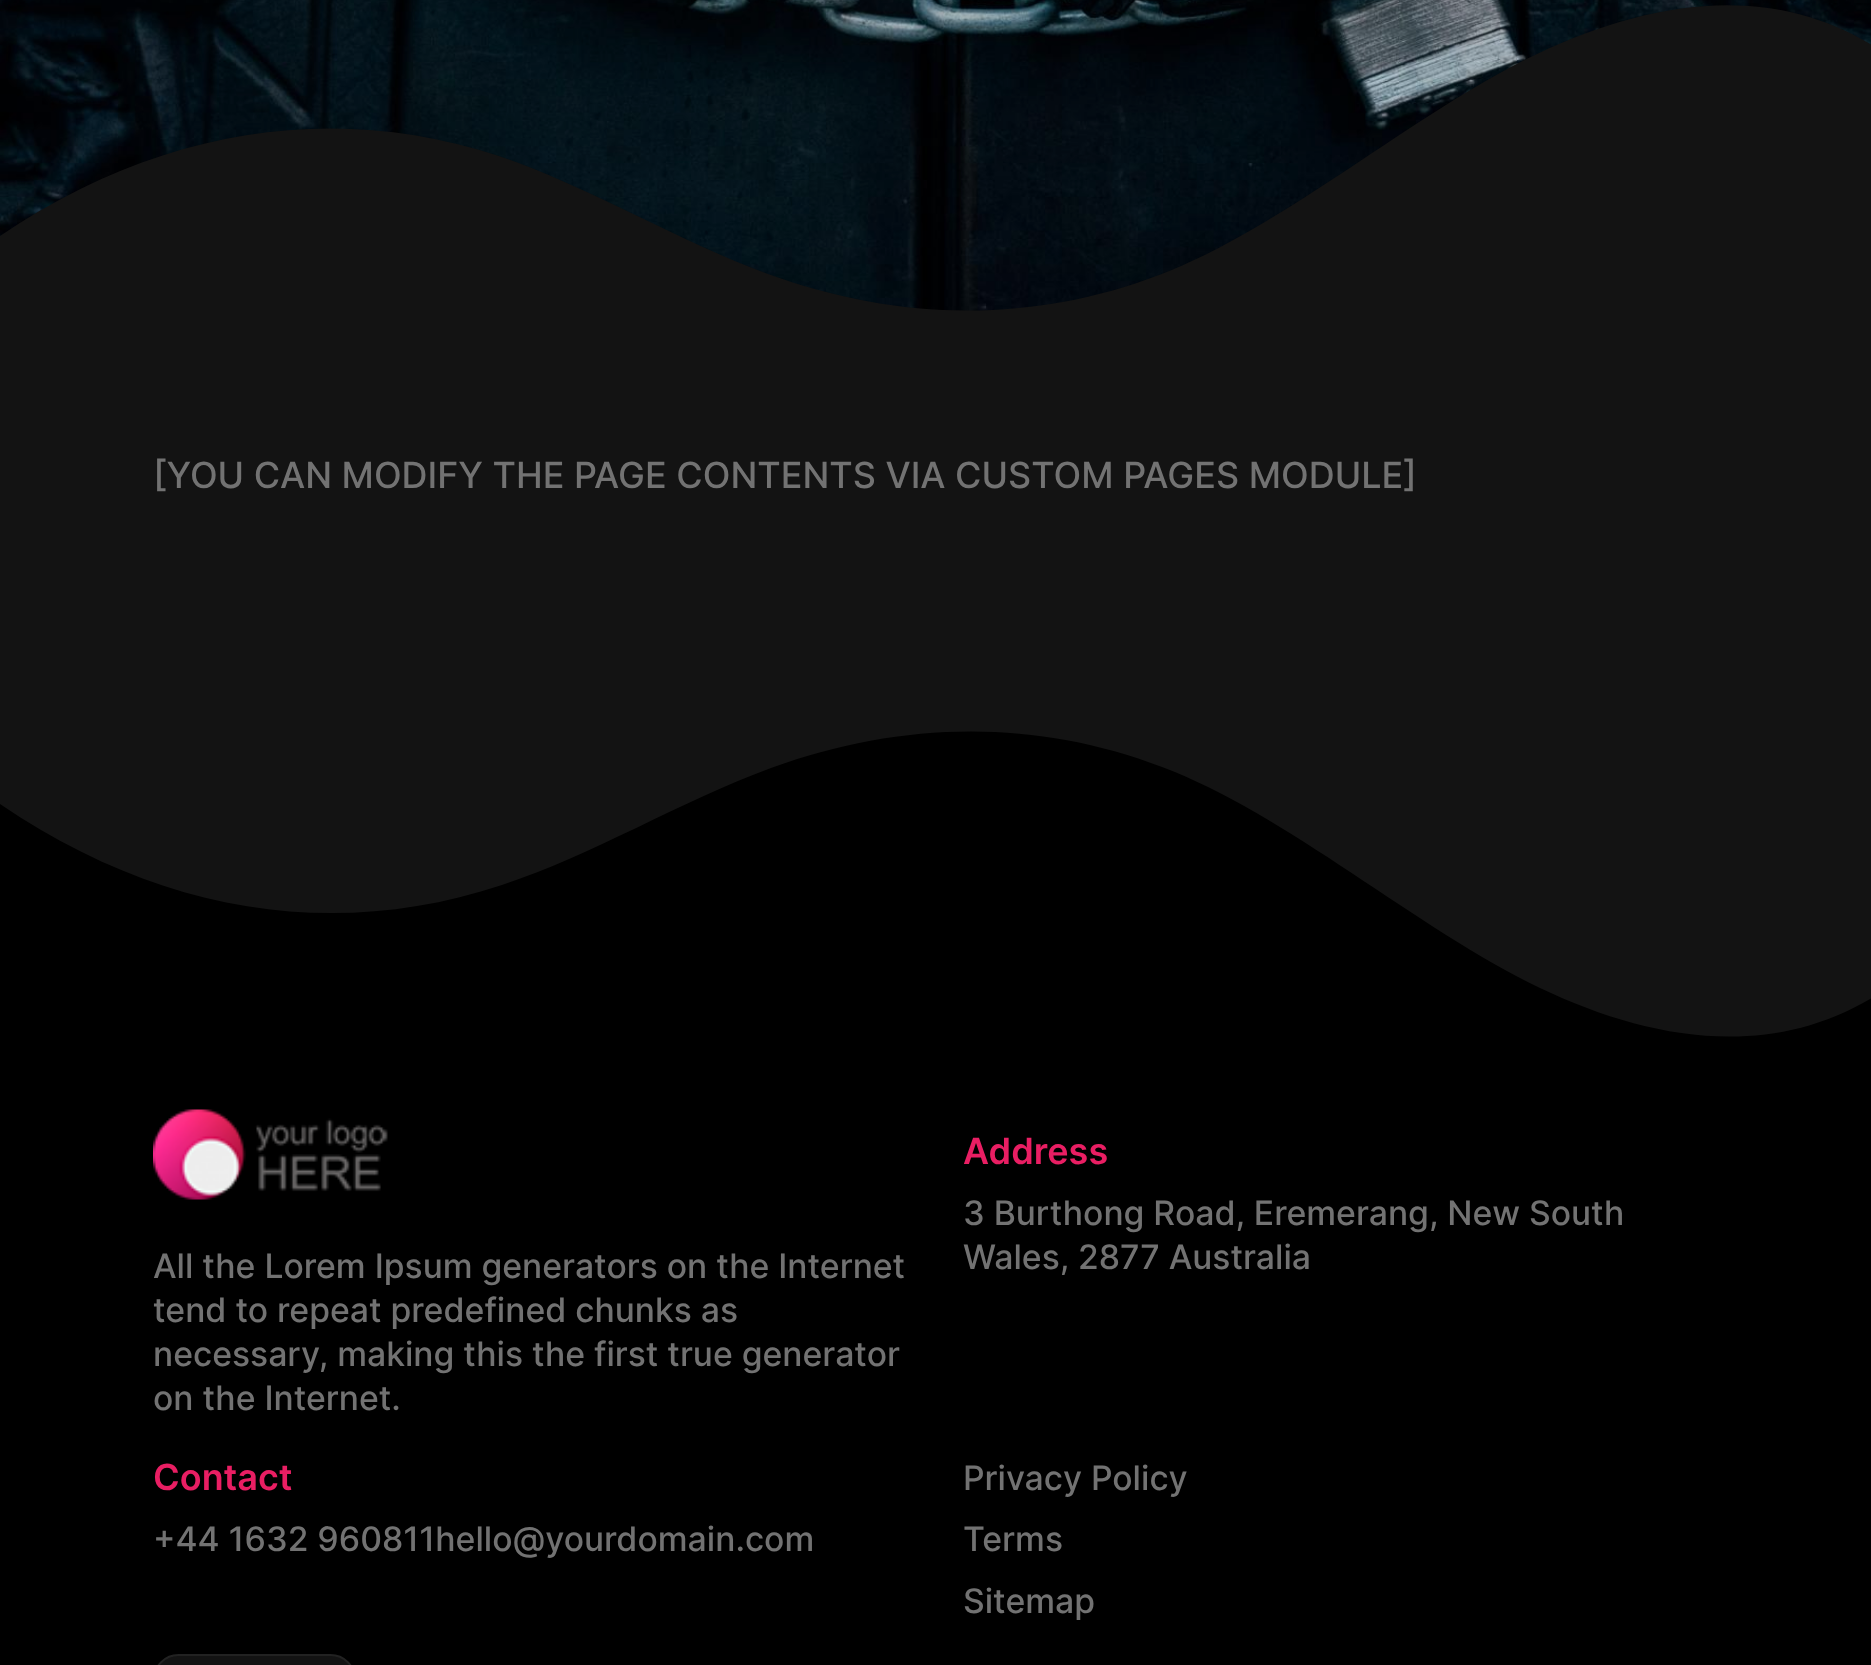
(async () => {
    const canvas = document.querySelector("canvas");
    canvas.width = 1871;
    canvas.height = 1665;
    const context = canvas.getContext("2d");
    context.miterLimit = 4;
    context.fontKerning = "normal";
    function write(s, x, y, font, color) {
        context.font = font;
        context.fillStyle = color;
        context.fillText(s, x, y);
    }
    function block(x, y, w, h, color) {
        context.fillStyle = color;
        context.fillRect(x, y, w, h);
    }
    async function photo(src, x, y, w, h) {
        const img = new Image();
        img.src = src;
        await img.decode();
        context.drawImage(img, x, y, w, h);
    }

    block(0, 0, 1871, 1665, "rgb(19, 19, 19)");
    await photo("media/1.png", 0, 0, 1871, 311);
    context.beginPath();
    context.moveTo(499, 156);
    context.bezierCurveTo(590, 187, 678, 241, 768, 274);
    context.bezierCurveTo(897, 321, 1031, 324, 1159, 275);
    context.bezierCurveTo(1284, 228, 1414, 112, 1537, 54);
    context.bezierCurveTo(1647, 2, 1766, -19, 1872, 45);
    context.lineTo(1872, 315);
    context.lineTo(-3, 315);
    context.lineTo(-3, 238);
    context.bezierCurveTo(157, 129, 331, 101, 499, 156);
    context.closePath();
    context.fill();
    write("[YOU CAN MODIFY THE PAGE CONTENTS VIA CUSTOM PAGES MODULE]", 153, 488, "500 36px Inter", "rgb(114, 114, 114)");
    block(0, 731, 1871, 934, "rgb(0, 0, 0)");
    context.fillStyle = "rgb(19, 19, 19)";
    context.beginPath();
    context.moveTo(502, 885);
    context.bezierCurveTo(593, 855, 681, 801, 771, 768);
    context.bezierCurveTo(900, 721, 1034, 718, 1162, 767);
    context.bezierCurveTo(1287, 814, 1417, 929, 1540, 988);
    context.bezierCurveTo(1649, 1040, 1769, 1061, 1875, 996);
    context.lineTo(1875, 727);
    context.lineTo(0, 727);
    context.lineTo(0, 804);
    context.bezierCurveTo(160, 913, 334, 941, 502, 885);
    context.closePath();
    context.fill();
    write("Address", 963, 1164, "600 36px Inter", "rgb(233, 30, 99)");
    write("3 Burthong Road, Eremerang, New South", 963, 1225, "500 33.75px Inter", "rgb(114, 114, 114)");
    write("Wales, 2877 Australia", 963, 1269, "500 33.75px Inter", "rgb(114, 114, 114)");
    await photo("media/2.png", 153, 1109, 235, 91);
    write("All the Lorem Ipsum generators on the Internet", 153, 1278, "500 33.75px Inter", "rgb(114, 114, 114)");
    write("tend to repeat predefined chunks as", 153, 1322, "500 33.75px Inter", "rgb(114, 114, 114)");
    write("necessary, making this the first true generator", 153, 1366, "500 33.75px Inter", "rgb(114, 114, 114)");
    write("on the Internet.", 153, 1410, "500 33.75px Inter", "rgb(114, 114, 114)");
    write("Contact", 153, 1490, "600 36px Inter", "rgb(233, 30, 99)");
    write("+44 1632 960811hello@yourdomain.com", 153, 1551, "500 33.75px Inter", "rgb(114, 114, 114)");
    write("Privacy Policy", 963, 1490, "500 33.75px Inter", "rgb(114, 114, 114)");
    write("Terms", 963, 1551, "500 33.75px Inter", "rgb(114, 114, 114)");
    write("Sitemap", 963, 1613, "500 33.75px Inter", "rgb(114, 114, 114)");
    context.fillStyle = "rgb(19, 19, 19)";
    context.beginPath();
    context.roundRect(154, 1655, 201, 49, 37);
    context.fill();
    context.strokeStyle = "rgb(34, 34, 34)";
    context.lineWidth = 2;
    context.stroke();
})();
